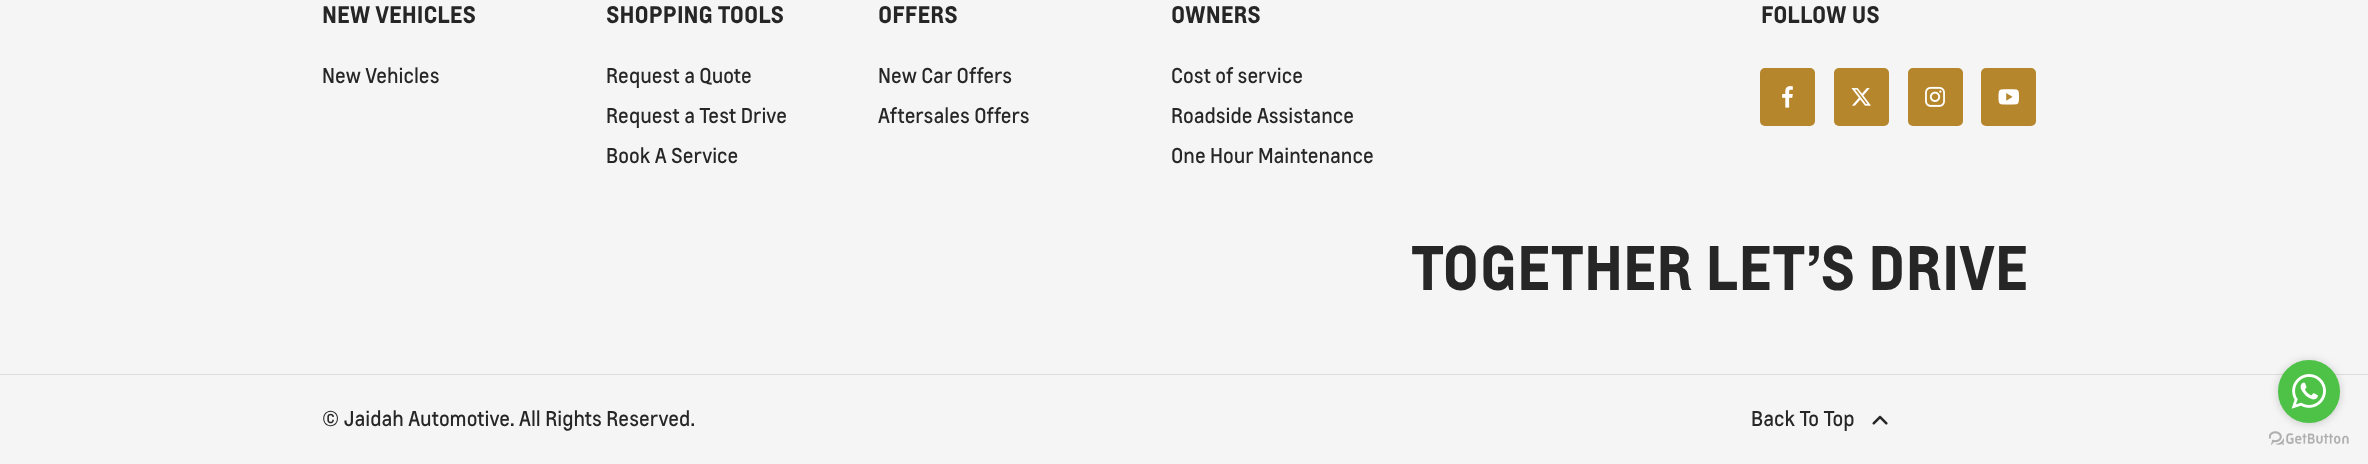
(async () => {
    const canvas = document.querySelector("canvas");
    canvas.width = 2368;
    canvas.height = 464;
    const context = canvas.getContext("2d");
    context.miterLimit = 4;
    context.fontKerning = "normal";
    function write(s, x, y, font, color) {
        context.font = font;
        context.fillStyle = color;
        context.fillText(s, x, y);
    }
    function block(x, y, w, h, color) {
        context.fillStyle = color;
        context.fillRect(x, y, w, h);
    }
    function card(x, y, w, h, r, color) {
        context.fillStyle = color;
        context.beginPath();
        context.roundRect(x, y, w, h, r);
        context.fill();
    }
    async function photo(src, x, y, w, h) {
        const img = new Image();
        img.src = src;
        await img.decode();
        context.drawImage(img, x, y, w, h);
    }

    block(0, 0, 2368, 464, "rgb(245, 245, 245)");
    write("NEW VEHICLES", 322, 23, "bold 22.5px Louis", "rgb(38, 38, 38)");
    write("New Vehicles", 322, 83, "20px Louis", "rgb(38, 38, 38)");
    write("SHOPPING TOOLS", 606, 23, "bold 22.5px Louis", "rgb(38, 38, 38)");
    write("Request a Quote", 606, 83, "20px Louis", "rgb(38, 38, 38)");
    write("Request a Test Drive", 606, 123, "20px Louis", "rgb(38, 38, 38)");
    write("Book A Service", 606, 163, "20px Louis", "rgb(38, 38, 38)");
    write("OFFERS", 878, 23, "bold 22.5px Louis", "rgb(38, 38, 38)");
    write("New Car Offers", 878, 83, "20px Louis", "rgb(38, 38, 38)");
    write("Aftersales Offers", 878, 123, "20px Louis", "rgb(38, 38, 38)");
    write("OWNERS", 1171, 23, "bold 22.5px Louis", "rgb(38, 38, 38)");
    write("Cost of service", 1171, 83, "20px Louis", "rgb(38, 38, 38)");
    write("Roadside Assistance", 1171, 123, "20px Louis", "rgb(38, 38, 38)");
    write("One Hour Maintenance", 1171, 163, "20px Louis", "rgb(38, 38, 38)");
    write("FOLLOW US", 1761, 23, "bold 22.5px Louis", "rgb(38, 38, 38)");
    card(1760, 68, 55, 58, 5, "rgb(182, 134, 45)");
    await photo("media/1.png", 1782, 86, 11, 22);
    card(1834, 68, 55, 58, 5, "rgb(182, 134, 45)");
    await photo("media/2.png", 1851, 88, 20, 18);
    card(1908, 68, 55, 58, 5, "rgb(182, 134, 45)");
    await photo("media/3.png", 1925, 86, 20, 21);
    card(1981, 68, 55, 58, 5, "rgb(182, 134, 45)");
    await photo("media/4.png", 1998, 89, 21, 16);
    write("TOGETHER LET’S DRIVE", 1411, 290, "bold 58.75px Louis", "rgb(38, 38, 38)");
    block(0, 374, 2368, 1, "rgb(221, 221, 221)");
    write("© Jaidah Automotive. All Rights Reserved.", 322, 426, "20px Louis", "rgb(38, 38, 38)");
    write("Back To Top", 1751, 426, "20px Louis", "rgb(38, 38, 38)");
    await photo("media/5.png", 1872, 415, 16, 10);
    await photo("media/7.png", 2269, 431, 80, 14);
    context.fillStyle = "rgba(136, 136, 136, 0.4)";
    context.filter = "blur(4.5px)";
    context.beginPath();
    context.roundRect(2278, 361, 62, 63, 31);
    context.fill();
    context.filter = "none";
    card(2278, 360, 62, 63, 31, "rgb(77, 194, 71)");
    await photo("media/6.png", 2291, 374, 35, 35);
})();
